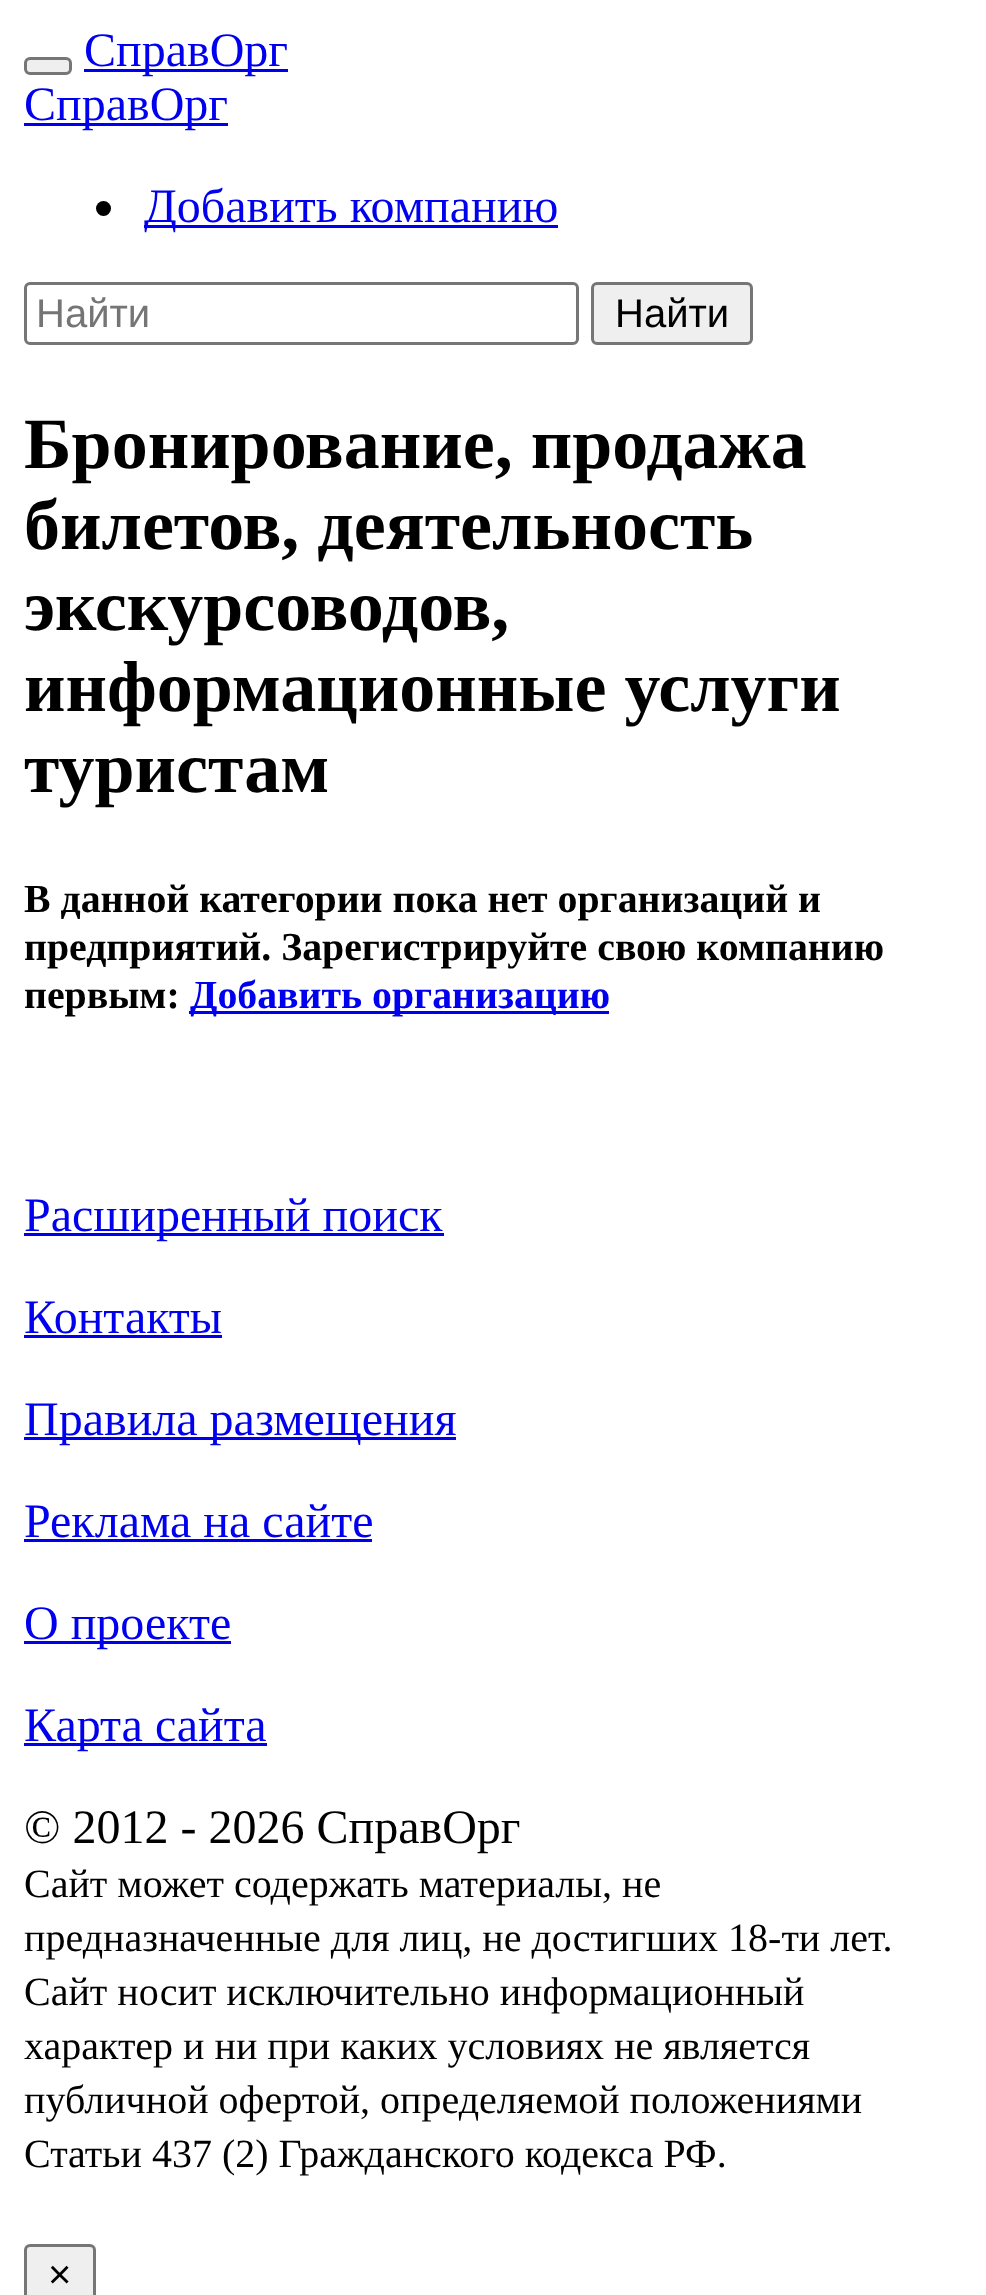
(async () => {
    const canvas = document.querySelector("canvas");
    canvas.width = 986;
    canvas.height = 2295;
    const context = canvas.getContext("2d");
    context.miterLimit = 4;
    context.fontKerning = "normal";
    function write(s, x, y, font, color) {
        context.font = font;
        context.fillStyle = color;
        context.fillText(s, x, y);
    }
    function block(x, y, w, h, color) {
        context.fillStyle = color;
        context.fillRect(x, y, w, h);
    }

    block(0, 0, 986, 2295, "rgb(255, 255, 255)");
    context.fillStyle = "rgb(239, 239, 239)";
    context.beginPath();
    context.roundRect(25.5, 58.5, 45, 15, 4.5);
    context.fill();
    context.strokeStyle = "rgb(118, 118, 118)";
    context.lineWidth = 3;
    context.stroke();
    block(84, 69, 204, 3, "rgb(0, 0, 238)");
    write("СправОрг", 84, 66, "48px Liberation Serif", "rgb(0, 0, 238)");
    block(24, 123, 204, 3, "rgb(0, 0, 238)");
    write("СправОрг", 24, 120, "48px Liberation Serif", "rgb(0, 0, 238)");
    context.fillStyle = "rgb(0, 0, 0)";
    context.beginPath();
    context.arc(103.5, 208.5, 7.5, 0, Math.PI * 2);
    context.fill();
    block(144, 225, 414, 3, "rgb(0, 0, 238)");
    write("Добавить компанию", 144, 222, "48px Liberation Serif", "rgb(0, 0, 238)");
    context.beginPath();
    context.roundRect(25.5, 283.5, 552, 60, 4.5);
    context.stroke();
    write("Найти", 36, 327, "40px Liberation Sans", "rgb(117, 117, 117)");
    context.fillStyle = "rgb(239, 239, 239)";
    context.beginPath();
    context.roundRect(592.5, 283.5, 159, 60, 4.5);
    context.fill();
    context.stroke();
    write("Найти", 615, 327, "40px Liberation Sans", "rgb(0, 0, 0)");
    write("Бронирование, продажа", 24, 468, "bold 72px Liberation Serif", "rgb(0, 0, 0)");
    write("билетов, деятельность", 24, 549, "bold 72px Liberation Serif", "rgb(0, 0, 0)");
    write("экскурсоводов,", 24, 630, "bold 72px Liberation Serif", "rgb(0, 0, 0)");
    write("информационные услуги", 24, 711, "bold 72px Liberation Serif", "rgb(0, 0, 0)");
    write("туристам", 24, 792, "bold 72px Liberation Serif", "rgb(0, 0, 0)");
    write("В данной категории пока нет организаций и", 24, 912, "bold 39.8px Liberation Serif", "rgb(0, 0, 0)");
    write("предприятий. Зарегистрируйте свою компанию", 24, 960, "bold 39.8px Liberation Serif", "rgb(0, 0, 0)");
    write("первым:", 24, 1008, "bold 39.8px Liberation Serif", "rgb(0, 0, 0)");
    block(189, 1011, 420, 3, "rgb(0, 0, 238)");
    write("Добавить организацию", 190, 1008, "bold 39.8px Liberation Serif", "rgb(0, 0, 238)");
    block(24, 1233, 420, 3, "rgb(0, 0, 238)");
    write("Расширенный поиск", 24, 1231, "48px Liberation Serif", "rgb(0, 0, 238)");
    write("Контакты", 24, 1333, "48px Liberation Serif", "rgb(0, 0, 238)");
    block(24, 1335, 198, 3, "rgb(0, 0, 238)");
    block(24, 1437, 432, 3, "rgb(0, 0, 238)");
    write("Правила размещения", 24, 1435, "48px Liberation Serif", "rgb(0, 0, 238)");
    write("Реклама на сайте", 24, 1537, "48px Liberation Serif", "rgb(0, 0, 238)");
    block(24, 1539, 348, 3, "rgb(0, 0, 238)");
    block(24, 1641, 207, 3, "rgb(0, 0, 238)");
    write("О проекте", 24, 1639, "48px Liberation Serif", "rgb(0, 0, 238)");
    block(24, 1743, 243, 3, "rgb(0, 0, 238)");
    write("Карта сайта", 24, 1741, "48px Liberation Serif", "rgb(0, 0, 238)");
    write("© 2012 - 2026 СправОрг", 24, 1843, "48px Liberation Serif", "rgb(0, 0, 0)");
    write("Сайт может содержать материалы, не", 24, 1897, "40px Liberation Serif", "rgb(0, 0, 0)");
    write("предназначенные для лиц, не достигших 18-ти лет.", 24, 1951, "40px Liberation Serif", "rgb(0, 0, 0)");
    write("Cайт носит исключительно информационный", 24, 2005, "40px Liberation Serif", "rgb(0, 0, 0)");
    write("характер и ни при каких условиях не является", 24, 2059, "40px Liberation Serif", "rgb(0, 0, 0)");
    write("публичной офертой, определяемой положениями", 24, 2113, "40px Liberation Serif", "rgb(0, 0, 0)");
    write("Статьи 437 (2) Гражданского кодекса РФ.", 24, 2167, "40px Liberation Serif", "rgb(0, 0, 0)");
    context.fillStyle = "rgb(239, 239, 239)";
    context.beginPath();
    context.roundRect(25.5, 2245.5, 69, 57, 4.5);
    context.fill();
    context.stroke();
    write("×", 48, 2288, "40px Liberation Sans", "rgb(0, 0, 0)");
})();
